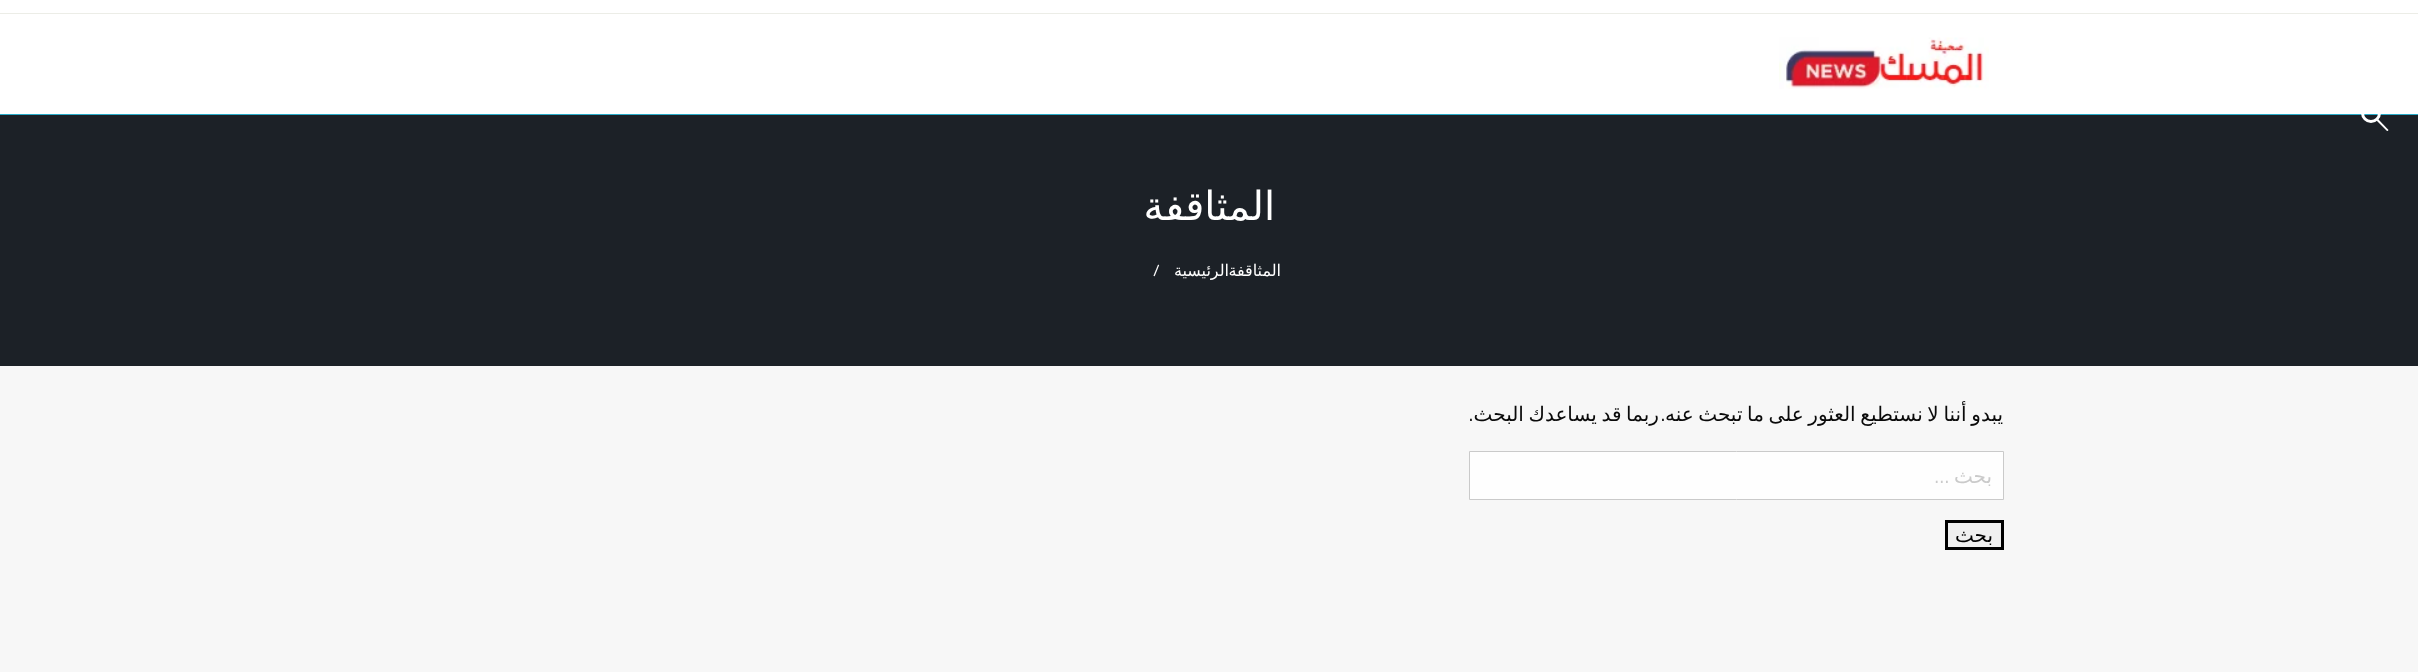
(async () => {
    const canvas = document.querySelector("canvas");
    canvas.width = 2418;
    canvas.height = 672;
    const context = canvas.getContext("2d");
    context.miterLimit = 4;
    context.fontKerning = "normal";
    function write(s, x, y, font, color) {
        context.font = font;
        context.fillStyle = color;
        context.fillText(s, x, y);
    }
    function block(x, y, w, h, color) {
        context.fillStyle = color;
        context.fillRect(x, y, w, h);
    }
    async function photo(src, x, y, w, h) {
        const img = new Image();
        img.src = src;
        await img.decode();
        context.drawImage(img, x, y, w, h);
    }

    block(0, 0, 2418, 672, "rgb(247, 247, 247)");
    block(0, 0, 2418, 13, "rgb(255, 255, 255)");
    block(0, 13, 2418, 1, "rgb(236, 237, 231)");
    block(0, 14, 2418, 100, "rgb(255, 255, 255)");
    await photo("media/1.png", 1779, 37, 210, 52);
    block(0, 114, 2418, 1, "rgb(41, 171, 200)");
    block(0, 115, 2418, 251, "rgb(28, 33, 39)");
    context.beginPath();
    context.arc(2371, 113, 8.5, 0, Math.PI * 2);
    context.strokeStyle = "rgb(255, 255, 255)";
    context.lineWidth = 3;
    context.stroke();
    context.fillStyle = "rgb(255, 255, 255)";
    context.beginPath();
    context.moveTo(2378, 119);
    context.lineTo(2388.5, 130);
    context.bezierCurveTo(2388.5, 130.5, 2387.5, 131, 2387, 131);
    context.lineTo(2376.5, 120.5);
    context.bezierCurveTo(2375.5, 119.5, 2377, 118.5, 2378, 119);
    context.closePath();
    context.fill();
    context.direction = "rtl";
    write("المثاقفة", 1275, 220, "40px DejaVu Sans", "rgb(255, 255, 255)");
    write("المثاقفة", 1281, 276, "16px DejaVu Sans", "rgb(255, 255, 255)");
    write("الرئيسية", 1229, 276, "16px DejaVu Sans", "rgb(255, 255, 255)");
    context.direction = "ltr";
    write("/", 1153, 276, "16px Cairo", "rgb(255, 255, 255)");
    context.wordSpacing = "-1.75px";
    context.direction = "rtl";
    write("يبدو أننا لا نستطيع العثور على ما تبحث عنه", 2003, 421, "20px DejaVu Sans", "rgb(10, 10, 10)");
    context.wordSpacing = "0px";
    write(".", 1665, 421, "20px Cairo", "rgb(10, 10, 10)");
    context.wordSpacing = "-1.75px";
    write("ربما قد يساعدك البحث", 1659, 421, "20px DejaVu Sans", "rgb(10, 10, 10)");
    context.wordSpacing = "0px";
    write(".", 1473, 421, "20px Cairo", "rgb(10, 10, 10)");
    context.fillStyle = "rgb(254, 254, 254)";
    context.beginPath();
    context.rect(1469.5, 451.5, 534, 48);
    context.fill();
    context.strokeStyle = "rgb(202, 202, 202)";
    context.lineWidth = 1;
    context.stroke();
    write("بحث", 1992, 483, "20px DejaVu Sans", "rgb(202, 202, 202)");
    write("…", 1949, 483, "20px Cairo", "rgb(202, 202, 202)");
    context.fillStyle = "rgb(239, 239, 239)";
    context.beginPath();
    context.rect(1946.5, 521.5, 56, 27);
    context.fill();
    context.strokeStyle = "rgb(0, 0, 0)";
    context.lineWidth = 3;
    context.stroke();
    write("بحث", 1993, 542, "20px DejaVu Sans", "rgb(0, 0, 0)");
})();
